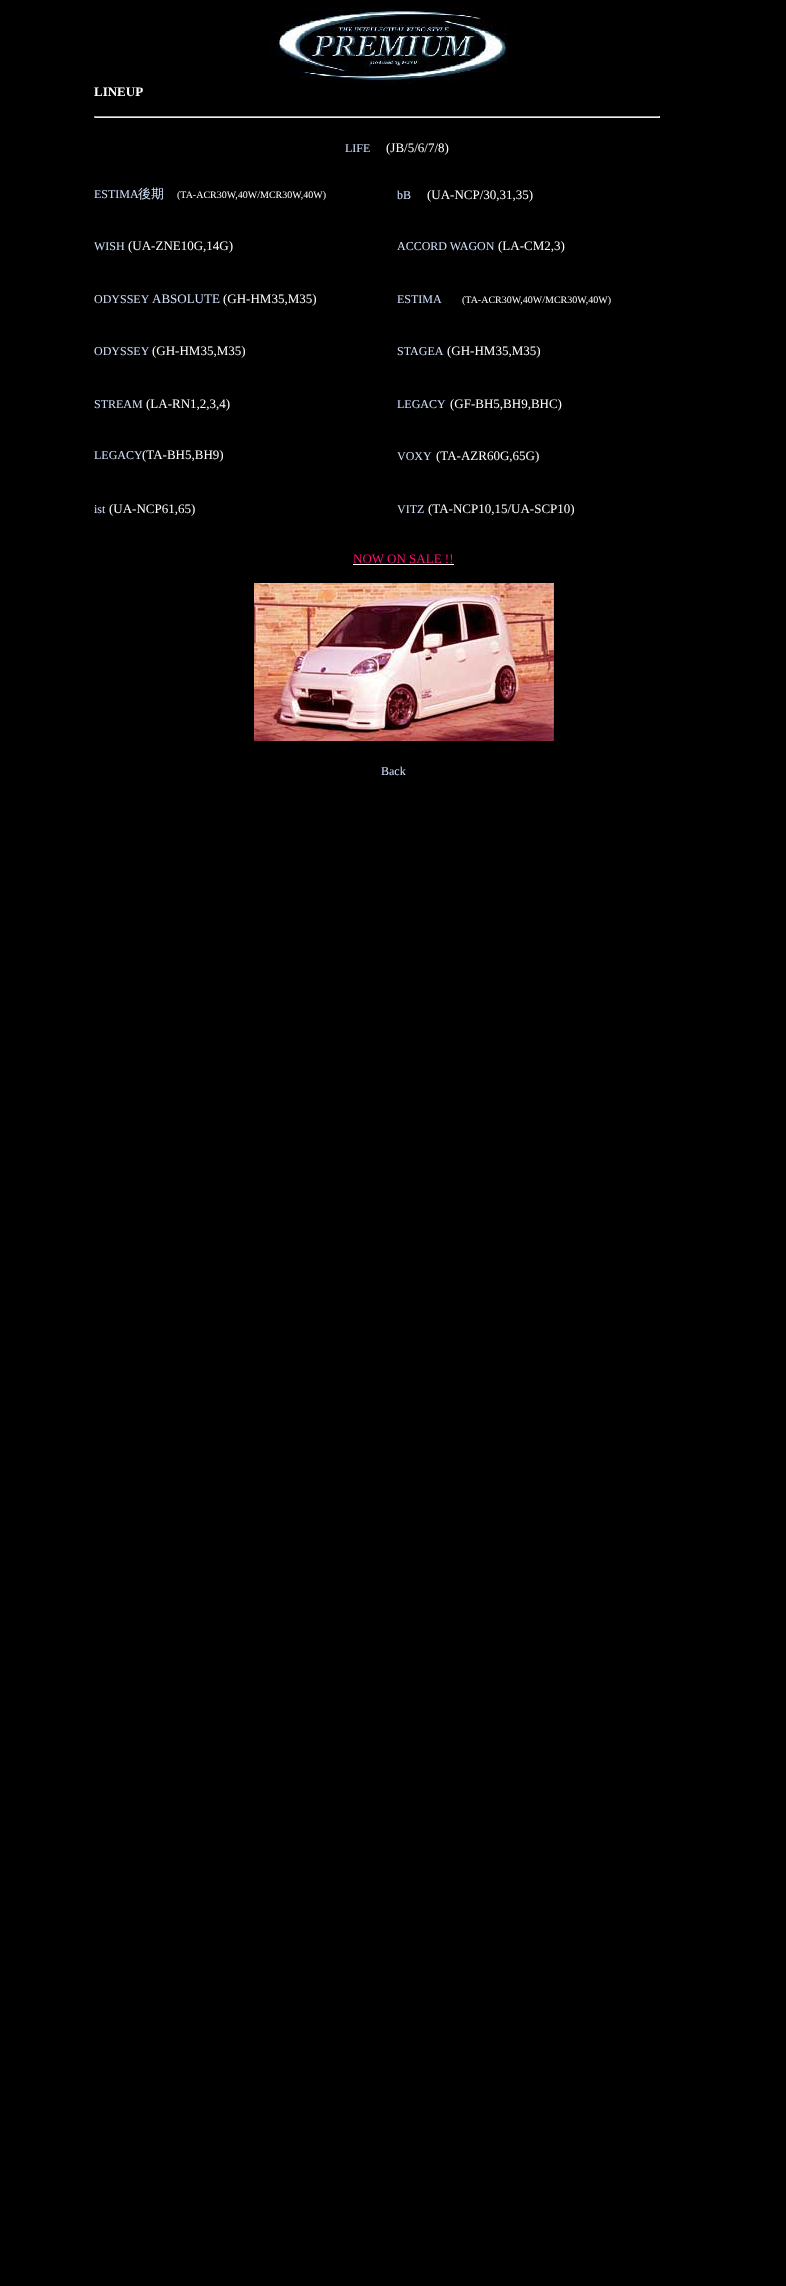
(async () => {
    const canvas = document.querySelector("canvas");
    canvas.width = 786;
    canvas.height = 2286;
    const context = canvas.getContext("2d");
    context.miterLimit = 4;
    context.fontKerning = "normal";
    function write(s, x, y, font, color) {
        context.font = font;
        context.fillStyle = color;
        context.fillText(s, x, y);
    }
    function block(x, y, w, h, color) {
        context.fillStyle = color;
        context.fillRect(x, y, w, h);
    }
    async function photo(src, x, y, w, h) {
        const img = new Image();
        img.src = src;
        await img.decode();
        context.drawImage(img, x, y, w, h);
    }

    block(0, 0, 786, 2286, "rgb(0, 0, 0)");
    await photo("media/1.png", 268, 8, 240, 76);
    write("LINEUP", 94, 96, "bold 13px Liberation Serif", "rgb(255, 255, 255)");
    block(94, 116, 566, 1, "rgb(159, 159, 159)");
    block(659, 116, 1, 2, "rgb(238, 238, 238)");
    block(94, 117, 566, 1, "rgb(238, 238, 238)");
    block(94, 116, 1, 2, "rgb(159, 159, 159)");
    write("LIFE", 345, 152, "12px Liberation Serif", "rgb(211, 226, 252)");
    write("(JB/5/6/7/8)", 386, 152, "13px Liberation Serif", "rgb(255, 255, 255)");
    write("ESTIMA", 94, 198, "12px Liberation Serif", "rgb(211, 226, 252)");
    write("後期", 138, 198, "500 13px WenQuanYi Zen Hei", "rgb(211, 226, 252)");
    write("(TA-ACR30W,40W/MCR30W,40W)", 177, 198, "10px Liberation Serif", "rgb(255, 255, 255)");
    write("bB", 397, 199, "12px Liberation Serif", "rgb(211, 226, 252)");
    write("(UA-NCP/30,31,35)", 427, 199, "13px Liberation Serif", "rgb(255, 255, 255)");
    write("WISH", 94, 250, "12px Liberation Serif", "rgb(211, 226, 252)");
    write("(UA-ZNE10G,14G)", 128, 250, "13px Liberation Serif", "rgb(255, 255, 255)");
    write("ACCORD WAGON", 397, 250, "12px Liberation Serif", "rgb(211, 226, 252)");
    write("(LA-CM2,3)", 498, 250, "13px Liberation Serif", "rgb(255, 255, 255)");
    write("ODYSSEY", 94, 303, "12px Liberation Serif", "rgb(211, 226, 252)");
    write("ABSOLUTE", 152, 303, "13px Liberation Serif", "rgb(211, 226, 252)");
    write("(GH-HM35,M35)", 223, 303, "13px Liberation Serif", "rgb(255, 255, 255)");
    write("ESTIMA", 397, 303, "12px Liberation Serif", "rgb(211, 226, 252)");
    write("(TA-ACR30W,40W/MCR30W,40W)", 462, 303, "10px Liberation Serif", "rgb(255, 255, 255)");
    write("ODYSSEY", 94, 355, "12px Liberation Serif", "rgb(211, 226, 252)");
    write("(GH-HM35,M35)", 152, 355, "13px Liberation Serif", "rgb(255, 255, 255)");
    write("STAGEA", 397, 355, "12px Liberation Serif", "rgb(211, 226, 252)");
    write("(GH-HM35,M35)", 447, 355, "13px Liberation Serif", "rgb(255, 255, 255)");
    write("STREAM", 94, 408, "12px Liberation Serif", "rgb(211, 226, 252)");
    write("(LA-RN1,2,3,4)", 146, 408, "13px Liberation Serif", "rgb(255, 255, 255)");
    write("LEGACY", 397, 408, "12px Liberation Serif", "rgb(211, 226, 252)");
    write("(GF-BH5,BH9,BHC)", 450, 408, "13px Liberation Serif", "rgb(255, 255, 255)");
    write("LEGACY", 94, 459, "12px Liberation Serif", "rgb(211, 226, 252)");
    write("(TA-BH5,BH9)", 142, 459, "13px Liberation Serif", "rgb(255, 255, 255)");
    write("VOXY", 397, 460, "12px Liberation Serif", "rgb(211, 226, 252)");
    write("(TA-AZR60G,65G)", 436, 460, "13px Liberation Serif", "rgb(255, 255, 255)");
    write("ist", 94, 513, "12px Liberation Serif", "rgb(211, 226, 252)");
    write("(UA-NCP61,65)", 109, 513, "13px Liberation Serif", "rgb(255, 255, 255)");
    write("VITZ", 397, 513, "12px Liberation Serif", "rgb(211, 226, 252)");
    write("(TA-NCP10,15/UA-SCP10)", 428, 513, "13px Liberation Serif", "rgb(255, 255, 255)");
    write("NOW ON SALE !!", 353, 563, "13px Liberation Serif", "rgb(250, 16, 116)");
    block(353, 564, 101, 1, "rgb(255, 255, 255)");
    await photo("media/2.png", 254, 583, 300, 158);
    write("Back", 381, 775, "12px Liberation Serif", "rgb(211, 226, 252)");
})();
